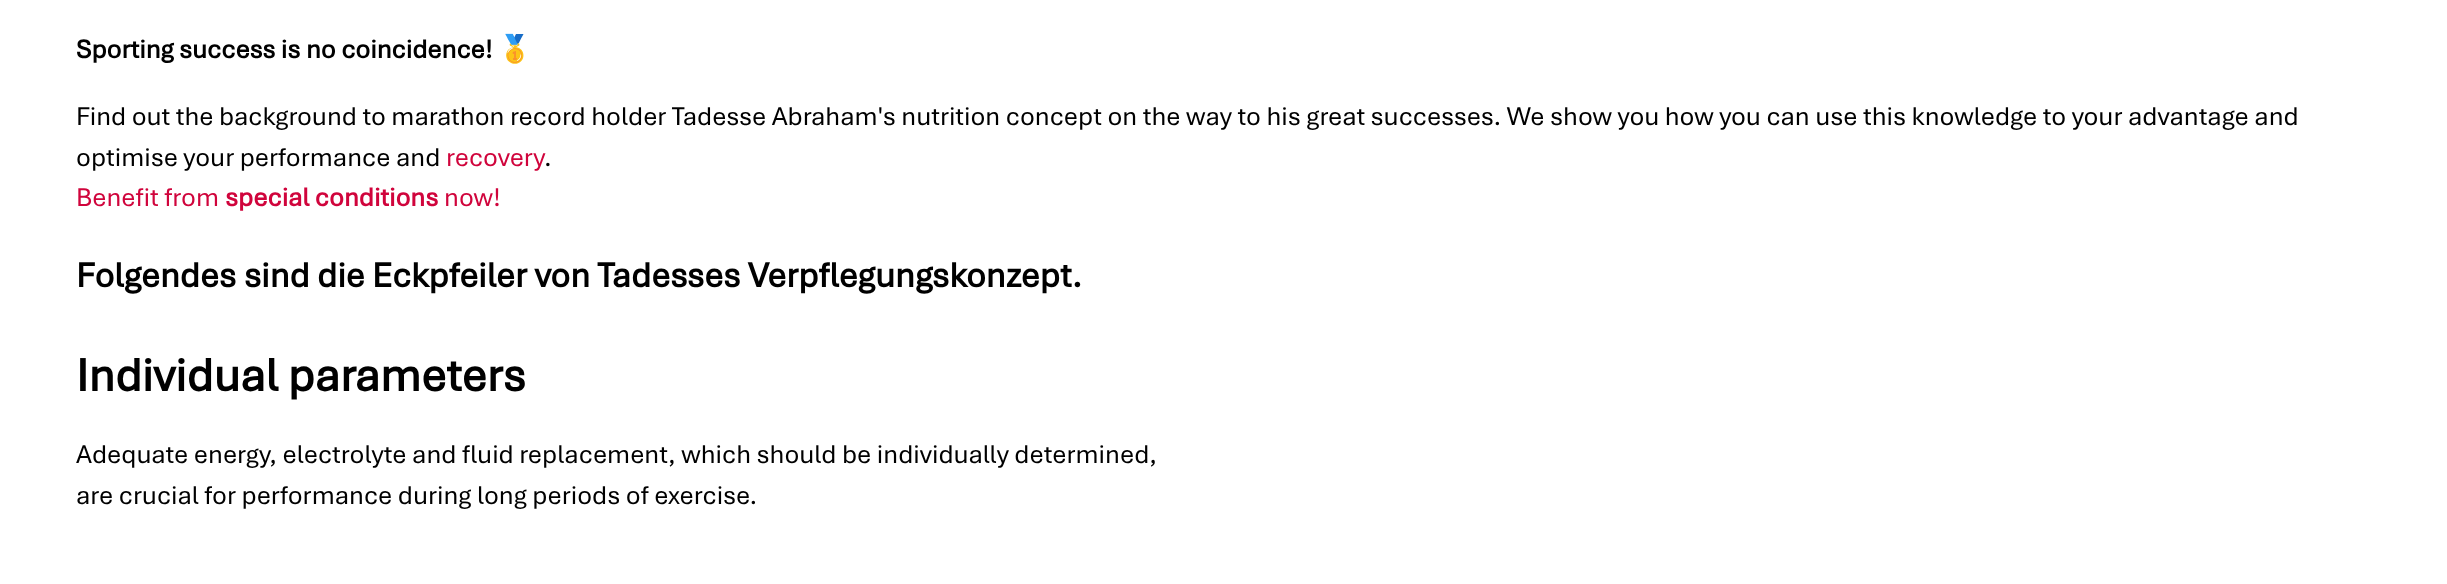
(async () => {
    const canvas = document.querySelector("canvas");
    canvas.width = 2447;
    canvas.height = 584;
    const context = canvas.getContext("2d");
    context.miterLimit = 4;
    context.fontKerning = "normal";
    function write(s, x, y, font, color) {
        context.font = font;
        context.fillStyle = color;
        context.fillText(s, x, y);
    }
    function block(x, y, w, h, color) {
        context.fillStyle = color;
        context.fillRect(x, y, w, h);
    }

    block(0, 0, 2447, 584, "rgb(255, 255, 255)");
    write("Sporting success is no coincidence!", 76, 58, "bold 27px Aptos", "rgb(0, 0, 0)");
    write("🥇", 498, 58, "27px Noto Color Emoji", "rgb(0, 0, 0)");
    write("Find out the background to marathon record holder Tadesse Abraham's nutrition concept on the way to his great successes. We show you how you can use this knowledge to your advantage and", 76, 125, "27px Aptos", "rgb(0, 0, 0)");
    write("optimise your performance and", 76, 166, "27px Aptos", "rgb(0, 0, 0)");
    write("recovery", 446, 166, "27px Aptos", "rgb(208, 4, 60)");
    write(".", 544, 166, "27px Aptos", "rgb(0, 0, 0)");
    write("Benefit from", 76, 206, "27px Aptos", "rgb(208, 4, 60)");
    write("special conditions", 225, 206, "bold 27px Aptos", "rgb(208, 4, 60)");
    write("now!", 444, 206, "27px Aptos", "rgb(208, 4, 60)");
    write("Folgendes sind die Eckpfeiler von Tadesses Verpflegungskonzept.", 76, 287, "bold 36px Aptos", "rgb(0, 0, 0)");
    write("Individual parameters", 76, 391, "bold 48px Aptos", "rgb(0, 0, 0)");
    write("Adequate energy, electrolyte and fluid replacement, which should be individually determined,", 76, 463, "27px Aptos", "rgb(0, 0, 0)");
    write("are crucial for performance during long periods of exercise.", 76, 504, "27px Aptos", "rgb(0, 0, 0)");
})();
